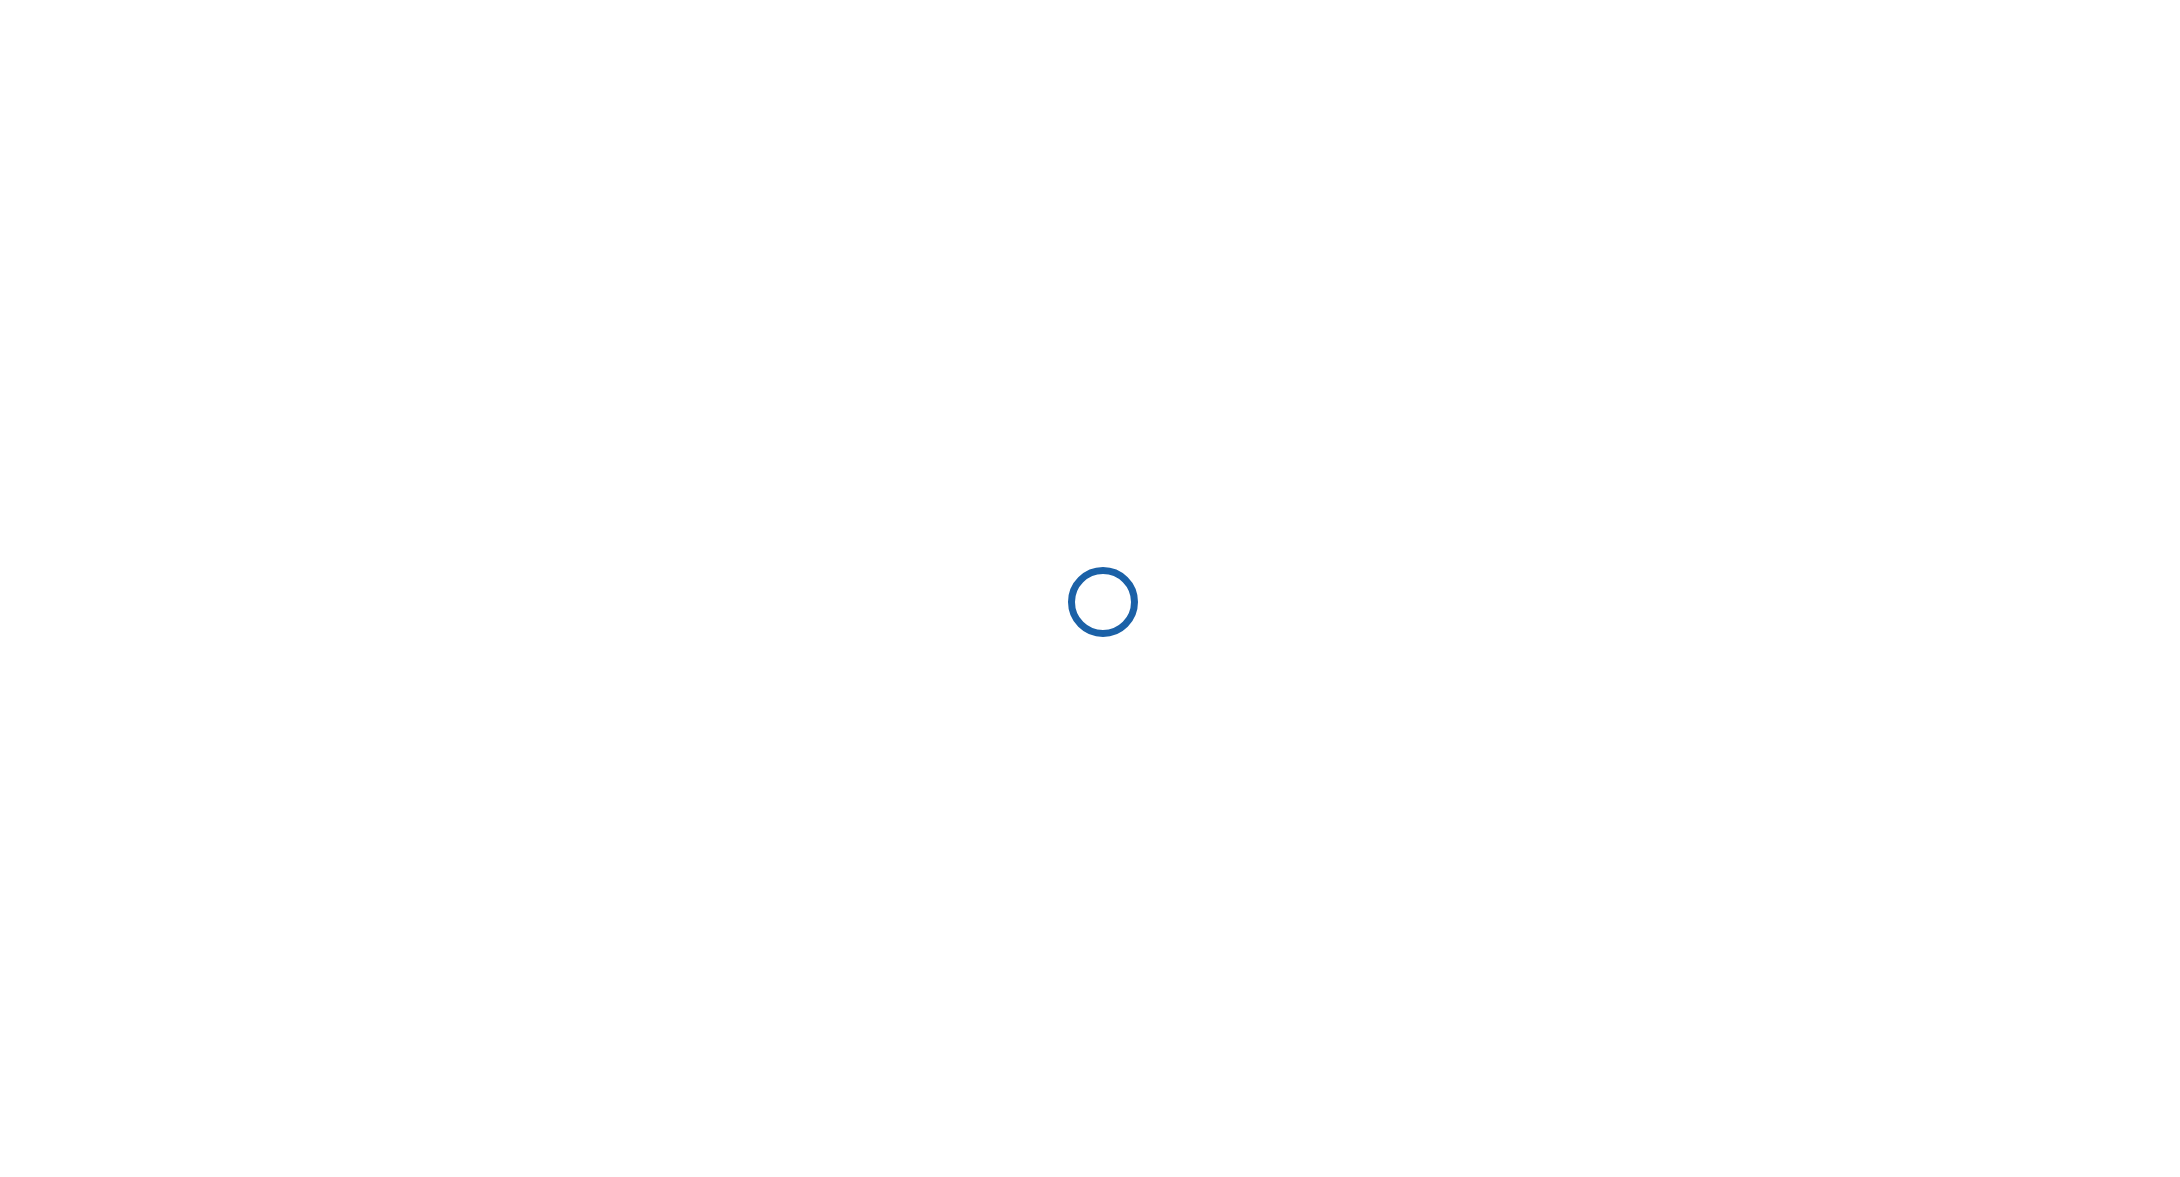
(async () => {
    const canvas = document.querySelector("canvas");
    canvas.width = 2180;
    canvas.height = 1177;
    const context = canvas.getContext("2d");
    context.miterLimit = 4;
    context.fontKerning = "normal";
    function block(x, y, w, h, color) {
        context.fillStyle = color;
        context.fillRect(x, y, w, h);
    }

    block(0, 0, 2180, 1177, "rgb(255, 255, 255)");
    context.beginPath();
    context.arc(1103, 602, 31.5, 0, Math.PI * 2);
    context.strokeStyle = "rgb(27, 97, 167)";
    context.lineWidth = 7;
    context.stroke();
})();
